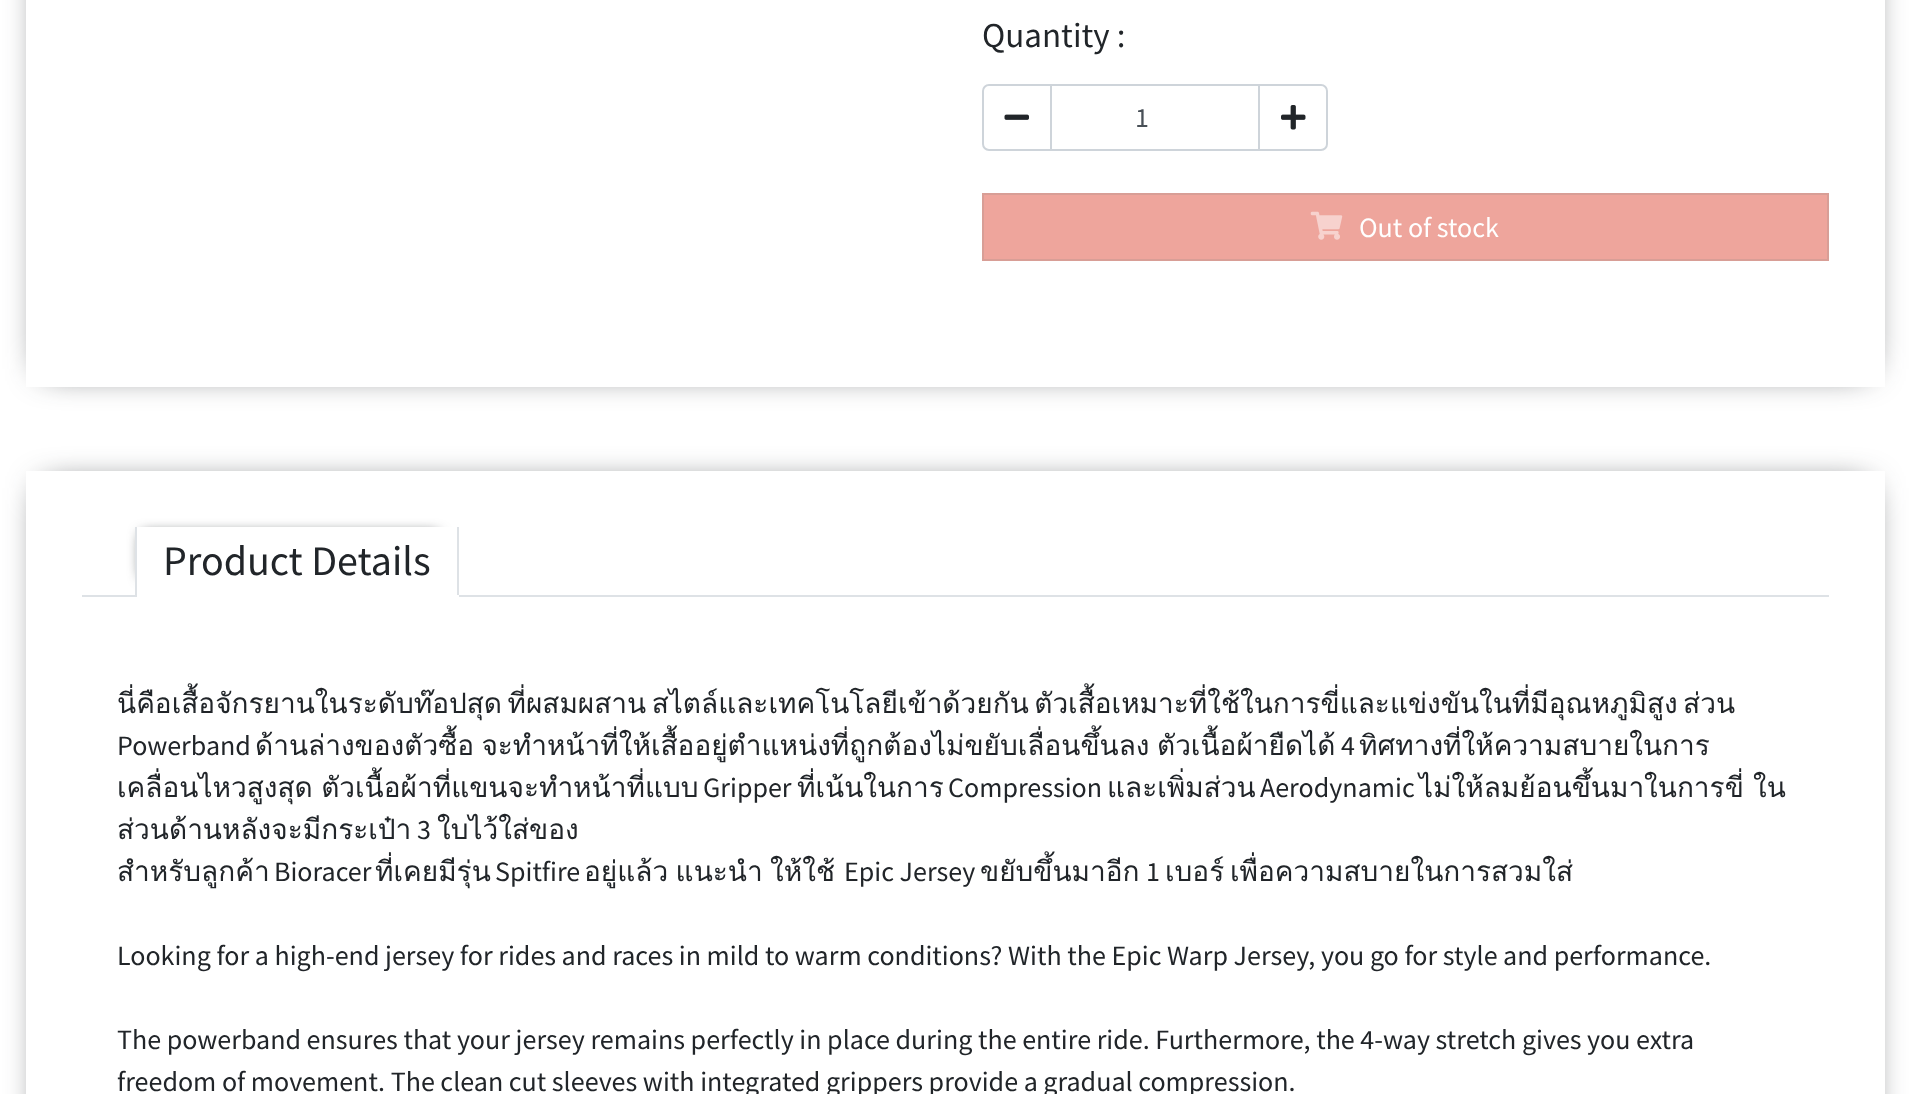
(async () => {
    const canvas = document.querySelector("canvas");
    canvas.width = 1910;
    canvas.height = 1094;
    const context = canvas.getContext("2d");
    context.miterLimit = 4;
    context.fontKerning = "normal";
    function write(s, x, y, font, color) {
        context.font = font;
        context.fillStyle = color;
        context.fillText(s, x, y);
    }
    function block(x, y, w, h, color) {
        context.fillStyle = color;
        context.fillRect(x, y, w, h);
    }
    async function photo(src, x, y, w, h) {
        const img = new Image();
        img.src = src;
        await img.decode();
        context.drawImage(img, x, y, w, h);
    }

    block(0, 0, 1910, 1094, "rgb(255, 255, 255)");
    context.fillStyle = "rgb(33, 37, 41)";
    context.filter = "blur(17.5px)";
    context.beginPath();
    context.rect(44, -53, 1823, 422);
    context.fill();
    context.filter = "none";
    block(26, 0, 1859, 387, "rgb(255, 255, 255)");
    write("Quantity :", 982, 47, "35px Source Sans Pro", "rgb(33, 37, 41)");
    context.strokeStyle = "rgb(206, 212, 218)";
    context.lineWidth = 2;
    context.strokeRect(1051, 85, 208, 65);
    context.beginPath();
    context.roundRect(983, 85, 68, 65, [6, 0, 0, 6]);
    context.stroke();
    await photo("media/1.png", 1004, 114, 25, 6);
    write("1", 1135, 127, "28px Source Sans Pro", "rgb(73, 80, 87)");
    context.beginPath();
    context.roundRect(1259, 85, 68, 65, [0, 6, 6, 0]);
    context.stroke();
    await photo("media/2.png", 1281, 105, 25, 25);
    context.fillStyle = "rgb(238, 165, 156)";
    context.beginPath();
    context.rect(983, 194, 845, 66);
    context.fill();
    context.strokeStyle = "rgb(216, 158, 150)";
    context.stroke();
    await photo("media/3.png", 1310, 211, 33, 29);
    write("Out of stock", 1359, 237, "28px Source Sans Pro", "rgb(255, 255, 255)");
    context.fillStyle = "rgb(33, 37, 41)";
    context.filter = "blur(17.5px)";
    context.beginPath();
    context.rect(44, 488, 1823, 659);
    context.fill();
    context.filter = "none";
    block(26, 471, 1859, 623, "rgb(255, 255, 255)");
    block(82, 595, 1747, 2, "rgb(222, 226, 230)");
    context.save();
    context.beginPath();
    context.moveTo(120, 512);
    context.lineTo(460, 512);
    context.lineTo(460, 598);
    context.lineTo(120, 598);
    context.closePath();
    context.moveTo(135, 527);
    context.lineTo(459, 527);
    context.lineTo(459, 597);
    context.lineTo(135, 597);
    context.closePath();
    context.clip("evenodd");
    context.fillStyle = "rgb(33, 37, 41)";
    context.filter = "blur(7px)";
    context.beginPath();
    context.rect(142, 534, 296, 42);
    context.fill();
    context.filter = "none";
    context.restore();
    block(457, 527, 2, 70, "rgb(222, 226, 230)");
    block(135, 595, 324, 2, "rgb(255, 255, 255)");
    block(135, 527, 2, 70, "rgb(222, 226, 230)");
    write("Product Details", 163, 575, "42px Source Sans Pro", "rgb(33, 37, 41)");
    context.save();
    context.beginPath();
    context.rect(117, 681, 1677, 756);
    context.clip();
    context.wordSpacing = "-4px";
    write("นี่คือเสื้อจักรยานในระดับท๊อปสุด ที่ผสมผสาน สไตล์และเทคโนโลยีเข้าด้วยกัน ตัวเสื้อเหมาะที่ใช้ในการขี่และแข่งขันในที่มีอุณหภูมิสูง ส่วน", 117, 713, "28px Loma", "rgb(33, 37, 41)");
    context.restore();
    write("Powerband", 117, 755, "28px Source Sans Pro", "rgb(33, 37, 41)");
    context.wordSpacing = "-2px";
    write("ด้านล่างของตัวซื้อ จะทำหน้าที่ให้เสื้ออยู่ตำแหน่งที่ถูกต้องไม่ขยับเลื่อนขึ้นลง ตัวเนื้อผ้ายืดได้", 255, 755, "28px Loma", "rgb(33, 37, 41)");
    context.wordSpacing = "0px";
    write("4", 1341, 755, "28px Source Sans Pro", "rgb(33, 37, 41)");
    write("ทิศทางที่ให้ความสบายในการ", 1359, 755, "28px Loma", "rgb(33, 37, 41)");
    context.wordSpacing = "-1px";
    write("เคลื่อนไหวสูงสุด ตัวเนื้อผ้าที่แขนจะทำหน้าที่แบบ", 117, 797, "28px Loma", "rgb(33, 37, 41)");
    context.wordSpacing = "0px";
    write("Gripper", 703, 797, "28px Source Sans Pro", "rgb(33, 37, 41)");
    write("ที่เน้นในการ", 797, 797, "28px Loma", "rgb(33, 37, 41)");
    write("Compression", 948, 797, "28px Source Sans Pro", "rgb(33, 37, 41)");
    write("และเพิ่มส่วน", 1107, 797, "28px Loma", "rgb(33, 37, 41)");
    write("Aerodynamic", 1260, 797, "28px Source Sans Pro", "rgb(33, 37, 41)");
    write("ไม่ให้ลมย้อนขึ้นมาในการขี่", 1419, 797, "28px Loma", "rgb(33, 37, 41)");
    write("ใน", 1753, 797, "28px Loma", "rgb(33, 37, 41)");
    context.save();
    context.beginPath();
    context.rect(117, 681, 1677, 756);
    context.clip();
    write("ส่วนด้านหลังจะมีกระเป๋า", 117, 839, "28px Loma", "rgb(33, 37, 41)");
    context.restore();
    write("3", 417, 839, "28px Source Sans Pro", "rgb(33, 37, 41)");
    write("ใบไว้ใส่ของ", 437, 839, "28px Loma", "rgb(33, 37, 41)");
    context.save();
    context.beginPath();
    context.rect(117, 681, 1677, 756);
    context.clip();
    write("สำหรับลูกค้า", 117, 881, "28px Loma", "rgb(33, 37, 41)");
    context.restore();
    write("Bioracer", 274, 881, "28px Source Sans Pro", "rgb(33, 37, 41)");
    write("ที่เคยมีรุ่น", 375, 881, "28px Loma", "rgb(33, 37, 41)");
    write("Spitfire", 495, 881, "28px Source Sans Pro", "rgb(33, 37, 41)");
    context.wordSpacing = "-2px";
    write("อยู่แล้ว แนะนำ ให้ใช้", 584, 881, "28px Loma", "rgb(33, 37, 41)");
    context.wordSpacing = "0px";
    write("Epic Jersey", 844, 881, "28px Source Sans Pro", "rgb(33, 37, 41)");
    write("ขยับขึ้นมาอีก", 980, 881, "28px Loma", "rgb(33, 37, 41)");
    write("1", 1146, 881, "28px Source Sans Pro", "rgb(33, 37, 41)");
    write("เบอร์", 1165, 881, "28px Loma", "rgb(33, 37, 41)");
    write("เพื่อความสบายในการสวมใส่", 1230, 881, "28px Loma", "rgb(33, 37, 41)");
    write("Looking for a high-end jersey for rides and races in mild to warm conditions? With the Epic Warp Jersey, you go for style and performance.", 117, 965, "28px Source Sans Pro", "rgb(33, 37, 41)");
    write("The powerband ensures that your jersey remains perfectly in place during the entire ride. Furthermore, the 4-way stretch gives you extra", 117, 1049, "28px Source Sans Pro", "rgb(33, 37, 41)");
    write("freedom of movement. The clean cut sleeves with integrated grippers provide a gradual compression.", 117, 1091, "28px Source Sans Pro", "rgb(33, 37, 41)");
})();
